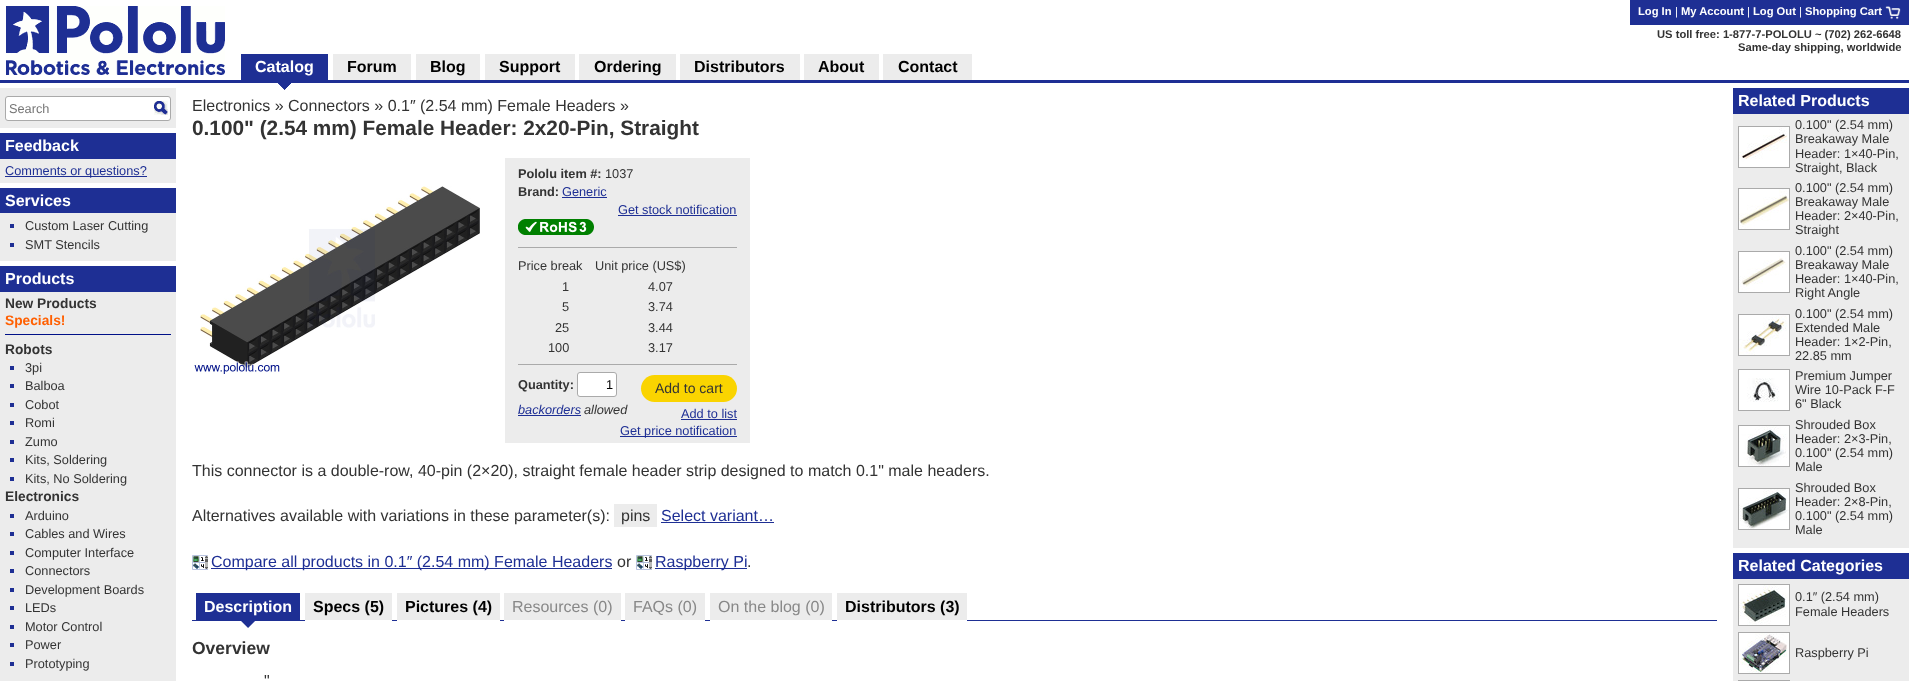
(async () => {
    const canvas = document.querySelector("canvas");
    canvas.width = 1909;
    canvas.height = 681;
    const context = canvas.getContext("2d");
    context.miterLimit = 4;
    context.fontKerning = "normal";
    function write(s, x, y, font, color) {
        context.font = font;
        context.fillStyle = color;
        context.fillText(s, x, y);
    }
    function block(x, y, w, h, color) {
        context.fillStyle = color;
        context.fillRect(x, y, w, h);
    }
    function card(x, y, w, h, r, color) {
        context.fillStyle = color;
        context.beginPath();
        context.roundRect(x, y, w, h, r);
        context.fill();
    }
    async function photo(src, x, y, w, h) {
        const img = new Image();
        img.src = src;
        await img.decode();
        context.drawImage(img, x, y, w, h);
    }

    block(0, 0, 1909, 681, "rgb(255, 255, 255)");
    block(0, 80, 1909, 3, "rgb(30, 47, 148)");
    await photo("media/1.png", 6, 6, 219, 69);
    block(1630, 0, 279, 25, "rgb(30, 47, 148)");
    write("Log In", 1638, 15, "bold 11.2px Liberation Sans", "rgb(255, 255, 255)");
    write("|", 1675, 15, "11.2px Liberation Sans", "rgb(255, 255, 255)");
    write("My Account", 1681, 15, "bold 11.2px Liberation Sans", "rgb(255, 255, 255)");
    write("|", 1747, 15, "11.2px Liberation Sans", "rgb(255, 255, 255)");
    write("Log Out", 1753, 15, "bold 11.2px Liberation Sans", "rgb(255, 255, 255)");
    write("|", 1799, 15, "11.2px Liberation Sans", "rgb(255, 255, 255)");
    write("Shopping Cart", 1805, 15, "bold 11.2px Liberation Sans", "rgb(255, 255, 255)");
    await photo("media/2.png", 1885, 6, 16, 14);
    write("US toll free: 1-877-7-POLOLU ~ (702) 262-6648", 1657, 38, "bold 11.2px Liberation Sans", "rgb(51, 51, 51)");
    write("Same-day shipping, worldwide", 1738, 51, "bold 11.2px Liberation Sans", "rgb(51, 51, 51)");
    await photo("media/3.png", 278, 83, 13, 7);
    block(241, 54, 87, 26, "rgb(30, 47, 148)");
    write("Catalog", 255, 72, "bold 16px Liberation Sans", "rgb(255, 255, 255)");
    block(333, 54, 78, 26, "rgb(236, 236, 236)");
    write("Forum", 347, 72, "bold 16px Liberation Sans", "rgb(0, 0, 0)");
    block(416, 54, 64, 26, "rgb(236, 236, 236)");
    write("Blog", 430, 72, "bold 16px Liberation Sans", "rgb(0, 0, 0)");
    block(485, 54, 90, 26, "rgb(236, 236, 236)");
    write("Support", 499, 72, "bold 16px Liberation Sans", "rgb(0, 0, 0)");
    block(579, 54, 97, 26, "rgb(236, 236, 236)");
    write("Ordering", 594, 72, "bold 16px Liberation Sans", "rgb(0, 0, 0)");
    block(680, 54, 120, 26, "rgb(236, 236, 236)");
    write("Distributors", 694, 72, "bold 16px Liberation Sans", "rgb(0, 0, 0)");
    block(804, 54, 75, 26, "rgb(236, 236, 236)");
    write("About", 818, 72, "bold 16px Liberation Sans", "rgb(0, 0, 0)");
    block(883, 54, 89, 26, "rgb(236, 236, 236)");
    write("Contact", 898, 72, "bold 16px Liberation Sans", "rgb(0, 0, 0)");
    block(0, 88, 176, 40, "rgb(236, 236, 236)");
    context.fillStyle = "rgb(255, 255, 255)";
    context.beginPath();
    context.roundRect(5.5, 96.5, 165, 24, 2.5);
    context.fill();
    context.strokeStyle = "rgb(170, 170, 170)";
    context.stroke();
    write("Search", 9, 113, "12.75px Liberation Sans", "rgb(117, 117, 117)");
    await photo("media/4.png", 154, 101, 14, 14);
    block(0, 133, 176, 26, "rgb(30, 47, 148)");
    write("Feedback", 5, 151, "bold 16px Liberation Sans", "rgb(255, 255, 255)");
    block(0, 159, 176, 24, "rgb(236, 236, 236)");
    block(5, 176, 142, 1, "rgb(30, 47, 148)");
    write("Comments or questions?", 5, 175, "12.75px Liberation Sans", "rgb(30, 47, 148)");
    block(0, 188, 176, 25, "rgb(30, 47, 148)");
    write("Services", 5, 206, "bold 16px Liberation Sans", "rgb(255, 255, 255)");
    block(0, 213, 176, 48, "rgb(236, 236, 236)");
    block(10, 224, 4, 4, "rgb(30, 47, 148)");
    write("Custom Laser Cutting", 25, 230, "12.75px Liberation Sans", "rgb(51, 51, 51)");
    block(10, 243, 4, 4, "rgb(30, 47, 148)");
    write("SMT Stencils", 25, 249, "12.75px Liberation Sans", "rgb(51, 51, 51)");
    block(0, 266, 176, 26, "rgb(30, 47, 148)");
    write("Products", 5, 284, "bold 16px Liberation Sans", "rgb(255, 255, 255)");
    block(0, 292, 176, 389, "rgb(236, 236, 236)");
    write("New Products", 5, 308, "bold 13.75px Liberation Sans", "rgb(51, 51, 51)");
    write("Specials!", 5, 325, "bold 13.75px Liberation Sans", "rgb(255, 95, 0)");
    block(5, 334, 166, 1, "rgb(0, 17, 136)");
    write("Robots", 5, 354, "bold 13.75px Liberation Sans", "rgb(51, 51, 51)");
    block(10, 366, 4, 4, "rgb(30, 47, 148)");
    write("3pi", 25, 372, "12.75px Liberation Sans", "rgb(51, 51, 51)");
    block(10, 384, 4, 4, "rgb(30, 47, 148)");
    write("Balboa", 25, 390, "12.75px Liberation Sans", "rgb(51, 51, 51)");
    block(10, 403, 4, 4, "rgb(30, 47, 148)");
    write("Cobot", 25, 409, "12.75px Liberation Sans", "rgb(51, 51, 51)");
    block(10, 421, 4, 4, "rgb(30, 47, 148)");
    write("Romi", 25, 427, "12.75px Liberation Sans", "rgb(51, 51, 51)");
    block(10, 440, 4, 4, "rgb(30, 47, 148)");
    write("Zumo", 25, 446, "12.75px Liberation Sans", "rgb(51, 51, 51)");
    block(10, 458, 4, 4, "rgb(30, 47, 148)");
    write("Kits, Soldering", 25, 464, "12.75px Liberation Sans", "rgb(51, 51, 51)");
    block(10, 477, 4, 4, "rgb(30, 47, 148)");
    write("Kits, No Soldering", 25, 483, "12.75px Liberation Sans", "rgb(51, 51, 51)");
    write("Electronics", 5, 501, "bold 13.75px Liberation Sans", "rgb(51, 51, 51)");
    block(10, 514, 4, 4, "rgb(30, 47, 148)");
    write("Arduino", 25, 520, "12.75px Liberation Sans", "rgb(51, 51, 51)");
    block(10, 532, 4, 4, "rgb(30, 47, 148)");
    write("Cables and Wires", 25, 538, "12.75px Liberation Sans", "rgb(51, 51, 51)");
    block(10, 551, 4, 4, "rgb(30, 47, 148)");
    write("Computer Interface", 25, 557, "12.75px Liberation Sans", "rgb(51, 51, 51)");
    block(10, 569, 4, 4, "rgb(30, 47, 148)");
    write("Connectors", 25, 575, "12.75px Liberation Sans", "rgb(51, 51, 51)");
    block(10, 588, 4, 4, "rgb(30, 47, 148)");
    write("Development Boards", 25, 594, "12.75px Liberation Sans", "rgb(51, 51, 51)");
    block(10, 606, 4, 4, "rgb(30, 47, 148)");
    write("LEDs", 25, 612, "12.75px Liberation Sans", "rgb(51, 51, 51)");
    block(10, 625, 4, 4, "rgb(30, 47, 148)");
    write("Motor Control", 25, 631, "12.75px Liberation Sans", "rgb(51, 51, 51)");
    block(10, 643, 4, 4, "rgb(30, 47, 148)");
    write("Power", 25, 649, "12.75px Liberation Sans", "rgb(51, 51, 51)");
    block(10, 662, 4, 4, "rgb(30, 47, 148)");
    write("Prototyping", 25, 668, "12.75px Liberation Sans", "rgb(51, 51, 51)");
    write("Electronics » Connectors » 0.1″ (2.54 mm) Female Headers »", 192, 111, "16px Liberation Sans", "rgb(51, 51, 51)");
    write("0.100\" (2.54 mm) Female Header: 2x20-Pin, Straight", 192, 135, "bold 20.8px Liberation Sans", "rgb(51, 51, 51)");
    await photo("media/5.png", 194, 186, 286, 188);
    block(505, 158, 245, 285, "rgb(236, 236, 236)");
    write("Pololu item #:", 518, 178, "bold 12.75px Liberation Sans", "rgb(51, 51, 51)");
    write("1037", 605, 178, "12.75px Liberation Sans", "rgb(51, 51, 51)");
    write("Brand:", 518, 196, "bold 12.75px Liberation Sans", "rgb(51, 51, 51)");
    write("Generic", 562, 196, "12.75px Liberation Sans", "rgb(30, 47, 148)");
    block(562, 197, 45, 1, "rgb(30, 47, 148)");
    write("Get stock notification", 618, 214, "12.75px Liberation Sans", "rgb(30, 47, 148)");
    block(618, 215, 119, 1, "rgb(30, 47, 148)");
    await photo("media/6.png", 518, 219, 76, 16);
    block(518, 247, 219, 1, "rgb(170, 170, 170)");
    write("Price break", 518, 270, "12.75px Liberation Sans", "rgb(51, 51, 51)");
    write("Unit price (US$)", 595, 270, "12.75px Liberation Sans", "rgb(51, 51, 51)");
    write("1", 562, 291, "12.75px Liberation Sans", "rgb(51, 51, 51)");
    write("4.07", 648, 291, "12.75px Liberation Sans", "rgb(51, 51, 51)");
    write("5", 562, 311, "12.75px Liberation Sans", "rgb(51, 51, 51)");
    write("3.74", 648, 311, "12.75px Liberation Sans", "rgb(51, 51, 51)");
    write("25", 555, 332, "12.75px Liberation Sans", "rgb(51, 51, 51)");
    write("3.44", 648, 332, "12.75px Liberation Sans", "rgb(51, 51, 51)");
    write("100", 548, 352, "12.75px Liberation Sans", "rgb(51, 51, 51)");
    write("3.17", 648, 352, "12.75px Liberation Sans", "rgb(51, 51, 51)");
    block(518, 364, 219, 1, "rgb(170, 170, 170)");
    write("Quantity:", 518, 389, "bold 12.75px Liberation Sans", "rgb(51, 51, 51)");
    context.fillStyle = "rgb(255, 255, 255)";
    context.beginPath();
    context.roundRect(577.5, 372.5, 39, 24, 2.5);
    context.fill();
    context.stroke();
    write("1", 606, 389, "12.75px Liberation Sans", "rgb(0, 0, 0)");
    write("backorders", 518, 414, "italic 12.75px Liberation Sans", "rgb(30, 47, 148)");
    block(518, 415, 63, 1, "rgb(30, 47, 148)");
    write("allowed", 584, 414, "italic 12.75px Liberation Sans", "rgb(51, 51, 51)");
    card(641, 375, 96, 27, 13.5, "rgb(250, 212, 0)");
    write("Add to cart", 655, 393, "14px Liberation Sans", "rgb(51, 51, 51)");
    write("Add to list", 681, 418, "12.75px Liberation Sans", "rgb(30, 47, 148)");
    block(681, 419, 56, 1, "rgb(30, 47, 148)");
    block(620, 436, 117, 1, "rgb(30, 47, 148)");
    write("Get price notification", 620, 435, "12.75px Liberation Sans", "rgb(30, 47, 148)");
    write("This connector is a double-row, 40-pin (2×20), straight female header strip designed to match 0.1\" male headers.", 192, 476, "16px Liberation Sans", "rgb(51, 51, 51)");
    write("Alternatives available with variations in these parameter(s):", 192, 521, "16px Liberation Sans", "rgb(51, 51, 51)");
    block(614, 504, 43, 23, "rgb(236, 236, 236)");
    write("pins", 621, 521, "16px Liberation Sans", "rgb(51, 51, 51)");
    write("Select variant…", 661, 521, "16px Liberation Sans", "rgb(30, 47, 148)");
    block(661, 522, 113, 1, "rgb(30, 47, 148)");
    await photo("media/7.png", 192, 555, 16, 15);
    block(211, 568, 401, 1, "rgb(30, 47, 148)");
    write("Compare all products in 0.1″ (2.54 mm) Female Headers", 211, 567, "16px Liberation Sans", "rgb(30, 47, 148)");
    write("or", 617, 567, "16px Liberation Sans", "rgb(51, 51, 51)");
    await photo("media/7.png", 636, 555, 16, 15);
    block(655, 568, 92, 1, "rgb(30, 47, 148)");
    write("Raspberry Pi", 655, 567, "16px Liberation Sans", "rgb(30, 47, 148)");
    write(".", 747, 567, "16px Liberation Sans", "rgb(51, 51, 51)");
    block(196, 593, 104, 28, "rgb(30, 47, 148)");
    await photo("media/8.png", 196, 621, 104, 7);
    write("Description", 204, 612, "bold 16px Liberation Sans", "rgb(255, 255, 255)");
    block(305, 593, 87, 27, "rgb(236, 236, 236)");
    write("Specs (5)", 313, 612, "bold 16px Liberation Sans", "rgb(0, 0, 0)");
    block(397, 593, 103, 27, "rgb(236, 236, 236)");
    write("Pictures (4)", 405, 612, "bold 16px Liberation Sans", "rgb(0, 0, 0)");
    block(504, 593, 117, 27, "rgb(236, 236, 236)");
    write("Resources (0)", 512, 612, "16px Liberation Sans", "rgb(136, 136, 136)");
    block(625, 593, 80, 27, "rgb(236, 236, 236)");
    write("FAQs (0)", 633, 612, "16px Liberation Sans", "rgb(136, 136, 136)");
    block(710, 593, 122, 27, "rgb(236, 236, 236)");
    write("On the blog (0)", 718, 612, "16px Liberation Sans", "rgb(136, 136, 136)");
    block(837, 593, 130, 27, "rgb(236, 236, 236)");
    write("Distributors (3)", 845, 612, "bold 16px Liberation Sans", "rgb(0, 0, 0)");
    block(192, 620, 4, 1, "rgb(30, 47, 148)");
    block(300, 620, 5, 1, "rgb(30, 47, 148)");
    block(392, 620, 5, 1, "rgb(30, 47, 148)");
    block(500, 620, 4, 1, "rgb(30, 47, 148)");
    block(621, 620, 4, 1, "rgb(30, 47, 148)");
    block(705, 620, 5, 1, "rgb(30, 47, 148)");
    block(832, 620, 5, 1, "rgb(30, 47, 148)");
    block(967, 620, 750, 1, "rgb(30, 47, 148)");
    write("Overview", 192, 654, "bold 17.5px Liberation Sans", "rgb(51, 51, 51)");
    context.wordSpacing = "1px";
    write("\"", 264, 686, "16px Liberation Sans", "rgb(51, 51, 51)");
    block(1733, 88, 176, 26, "rgb(30, 47, 148)");
    context.wordSpacing = "0px";
    write("Related Products", 1738, 106, "bold 16px Liberation Sans", "rgb(255, 255, 255)");
    block(1733, 114, 176, 434, "rgb(236, 236, 236)");
    context.strokeRect(1738.5, 126.5, 51, 41);
    await photo("media/9.png", 1739, 127, 50, 40);
    write("0.100\" (2.54 mm)", 1795, 129, "12.75px Liberation Sans", "rgb(51, 51, 51)");
    write("Breakaway Male", 1795, 143, "12.75px Liberation Sans", "rgb(51, 51, 51)");
    write("Header: 1×40-Pin,", 1795, 158, "12.75px Liberation Sans", "rgb(51, 51, 51)");
    write("Straight, Black", 1795, 172, "12.75px Liberation Sans", "rgb(51, 51, 51)");
    context.strokeRect(1738.5, 188.5, 51, 41);
    await photo("media/10.png", 1739, 189, 50, 40);
    write("0.100\" (2.54 mm)", 1795, 192, "12.75px Liberation Sans", "rgb(51, 51, 51)");
    write("Breakaway Male", 1795, 206, "12.75px Liberation Sans", "rgb(51, 51, 51)");
    write("Header: 2×40-Pin,", 1795, 220, "12.75px Liberation Sans", "rgb(51, 51, 51)");
    write("Straight", 1795, 234, "12.75px Liberation Sans", "rgb(51, 51, 51)");
    context.strokeRect(1738.5, 251.5, 51, 41);
    await photo("media/11.png", 1739, 252, 50, 40);
    write("0.100\" (2.54 mm)", 1795, 255, "12.75px Liberation Sans", "rgb(51, 51, 51)");
    write("Breakaway Male", 1795, 269, "12.75px Liberation Sans", "rgb(51, 51, 51)");
    write("Header: 1×40-Pin,", 1795, 283, "12.75px Liberation Sans", "rgb(51, 51, 51)");
    write("Right Angle", 1795, 297, "12.75px Liberation Sans", "rgb(51, 51, 51)");
    context.strokeRect(1738.5, 314.5, 51, 41);
    await photo("media/12.png", 1739, 315, 50, 40);
    write("0.100\" (2.54 mm)", 1795, 318, "12.75px Liberation Sans", "rgb(51, 51, 51)");
    write("Extended Male", 1795, 332, "12.75px Liberation Sans", "rgb(51, 51, 51)");
    write("Header: 1×2-Pin,", 1795, 346, "12.75px Liberation Sans", "rgb(51, 51, 51)");
    write("22.85 mm", 1795, 360, "12.75px Liberation Sans", "rgb(51, 51, 51)");
    context.strokeRect(1738.5, 369.5, 51, 41);
    await photo("media/13.png", 1739, 370, 50, 40);
    write("Premium Jumper", 1795, 380, "12.75px Liberation Sans", "rgb(51, 51, 51)");
    write("Wire 10-Pack F-F", 1795, 394, "12.75px Liberation Sans", "rgb(51, 51, 51)");
    write("6\" Black", 1795, 408, "12.75px Liberation Sans", "rgb(51, 51, 51)");
    context.strokeRect(1738.5, 425.5, 51, 41);
    await photo("media/14.png", 1739, 426, 50, 40);
    write("Shrouded Box", 1795, 429, "12.75px Liberation Sans", "rgb(51, 51, 51)");
    write("Header: 2×3-Pin,", 1795, 443, "12.75px Liberation Sans", "rgb(51, 51, 51)");
    write("0.100\" (2.54 mm)", 1795, 457, "12.75px Liberation Sans", "rgb(51, 51, 51)");
    write("Male", 1795, 471, "12.75px Liberation Sans", "rgb(51, 51, 51)");
    context.strokeRect(1738.5, 488.5, 51, 41);
    await photo("media/15.png", 1739, 489, 50, 40);
    write("Shrouded Box", 1795, 492, "12.75px Liberation Sans", "rgb(51, 51, 51)");
    write("Header: 2×8-Pin,", 1795, 506, "12.75px Liberation Sans", "rgb(51, 51, 51)");
    write("0.100\" (2.54 mm)", 1795, 520, "12.75px Liberation Sans", "rgb(51, 51, 51)");
    write("Male", 1795, 534, "12.75px Liberation Sans", "rgb(51, 51, 51)");
    block(1733, 553, 176, 26, "rgb(30, 47, 148)");
    write("Related Categories", 1738, 571, "bold 16px Liberation Sans", "rgb(255, 255, 255)");
    block(1733, 579, 176, 102, "rgb(236, 236, 236)");
    context.strokeRect(1738.5, 584.5, 51, 41);
    await photo("media/16.png", 1739, 585, 50, 40);
    write("0.1″ (2.54 mm)", 1795, 601, "12.75px Liberation Sans", "rgb(51, 51, 51)");
    write("Female Headers", 1795, 616, "12.75px Liberation Sans", "rgb(51, 51, 51)");
    context.strokeRect(1738.5, 632.5, 51, 41);
    await photo("media/17.png", 1739, 633, 50, 40);
    write("Raspberry Pi", 1795, 657, "12.75px Liberation Sans", "rgb(51, 51, 51)");
    context.strokeRect(1738.5, 680.5, 51, 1);
})();
